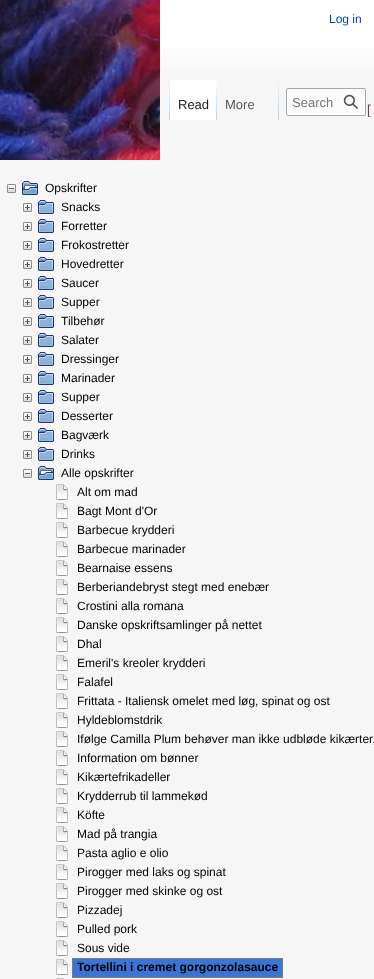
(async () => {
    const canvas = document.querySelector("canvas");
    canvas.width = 374;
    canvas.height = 979;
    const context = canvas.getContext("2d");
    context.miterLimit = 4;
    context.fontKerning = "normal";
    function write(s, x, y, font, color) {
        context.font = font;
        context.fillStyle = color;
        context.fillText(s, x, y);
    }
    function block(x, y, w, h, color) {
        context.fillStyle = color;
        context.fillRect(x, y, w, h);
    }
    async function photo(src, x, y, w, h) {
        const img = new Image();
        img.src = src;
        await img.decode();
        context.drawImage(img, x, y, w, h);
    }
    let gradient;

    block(0, 0, 374, 979, "rgb(246, 246, 246)");
    gradient = context.createLinearGradient(187, 0, 187, 80);
    gradient.addColorStop(0.5, "rgb(255, 255, 255)");
    gradient.addColorStop(1, "rgb(246, 246, 246)");
    context.fillStyle = gradient;
    context.fillRect(160, 0, 214, 69);
    write("Log in", 329, 23, "12px Liberation Sans", "rgb(6, 69, 173)");
    gradient = context.createLinearGradient(170, 80, 170, 120);
    gradient.addColorStop(0, "rgb(246, 246, 246)");
    gradient.addColorStop(1, "rgb(167, 215, 249)");
    context.fillStyle = gradient;
    context.fillRect(169, 80, 1, 40);
    block(170, 80, 46, 40, "rgb(255, 255, 255)");
    gradient = context.createLinearGradient(217, 80, 217, 120);
    gradient.addColorStop(0, "rgb(255, 255, 255)");
    gradient.addColorStop(1, "rgb(167, 215, 249)");
    context.fillStyle = gradient;
    context.fillRect(216, 80, 1, 40);
    write("Read", 178, 109, "13px Liberation Sans", "rgb(32, 33, 34)");
    gradient = context.createLinearGradient(279, 80, 279, 120);
    gradient.addColorStop(0, "rgb(246, 246, 246)");
    gradient.addColorStop(1, "rgb(167, 215, 249)");
    context.fillStyle = gradient;
    context.fillRect(278, 80, 1, 40);
    write("More", 225, 109, "13px Liberation Sans", "rgb(84, 89, 93)");
    context.fillStyle = "rgb(251, 251, 251)";
    context.beginPath();
    context.roundRect(286.5, 88.5, 79, 27, 1.5);
    context.fill();
    context.strokeStyle = "rgb(162, 169, 177)";
    context.stroke();
    write("Search", 292, 107, "13px Liberation Sans", "rgb(114, 119, 125)");
    await photo("media/1.png", 343, 94, 15, 15);
    await photo("media/2.png", 0, 0, 160, 160);
    await photo("media/3.png", 7, 184, 9, 9);
    await photo("media/4.png", 22, 181, 16, 14);
    write("Opskrifter", 45, 192, "12px Liberation Sans", "rgb(0, 0, 0)");
    await photo("media/5.png", 23, 203, 9, 9);
    await photo("media/6.png", 38, 200, 16, 14);
    write("Snacks", 61, 211, "12px Liberation Sans", "rgb(0, 0, 0)");
    await photo("media/5.png", 23, 222, 9, 9);
    await photo("media/6.png", 38, 219, 16, 14);
    write("Forretter", 61, 230, "12px Liberation Sans", "rgb(0, 0, 0)");
    await photo("media/5.png", 23, 241, 9, 9);
    await photo("media/6.png", 38, 238, 16, 14);
    write("Frokostretter", 61, 249, "12px Liberation Sans", "rgb(0, 0, 0)");
    await photo("media/5.png", 23, 260, 9, 9);
    await photo("media/6.png", 38, 257, 16, 14);
    write("Hovedretter", 61, 268, "12px Liberation Sans", "rgb(0, 0, 0)");
    await photo("media/5.png", 23, 279, 9, 9);
    await photo("media/6.png", 38, 276, 16, 14);
    write("Saucer", 61, 287, "12px Liberation Sans", "rgb(0, 0, 0)");
    await photo("media/5.png", 23, 298, 9, 9);
    await photo("media/6.png", 38, 295, 16, 14);
    write("Supper", 61, 306, "12px Liberation Sans", "rgb(0, 0, 0)");
    await photo("media/5.png", 23, 317, 9, 9);
    await photo("media/6.png", 38, 314, 16, 14);
    write("Tilbehør", 61, 325, "12px Liberation Sans", "rgb(0, 0, 0)");
    await photo("media/5.png", 23, 336, 9, 9);
    await photo("media/6.png", 38, 333, 16, 14);
    write("Salater", 61, 344, "12px Liberation Sans", "rgb(0, 0, 0)");
    await photo("media/5.png", 23, 355, 9, 9);
    await photo("media/6.png", 38, 352, 16, 14);
    write("Dressinger", 61, 363, "12px Liberation Sans", "rgb(0, 0, 0)");
    await photo("media/5.png", 23, 374, 9, 9);
    await photo("media/6.png", 38, 371, 16, 14);
    write("Marinader", 61, 382, "12px Liberation Sans", "rgb(0, 0, 0)");
    await photo("media/5.png", 23, 393, 9, 9);
    await photo("media/6.png", 38, 390, 16, 14);
    write("Supper", 61, 401, "12px Liberation Sans", "rgb(0, 0, 0)");
    await photo("media/5.png", 23, 412, 9, 9);
    await photo("media/6.png", 38, 409, 16, 14);
    write("Desserter", 61, 420, "12px Liberation Sans", "rgb(0, 0, 0)");
    await photo("media/5.png", 23, 431, 9, 9);
    await photo("media/6.png", 38, 428, 16, 14);
    write("Bagværk", 61, 439, "12px Liberation Sans", "rgb(0, 0, 0)");
    await photo("media/5.png", 23, 450, 9, 9);
    await photo("media/6.png", 38, 447, 16, 14);
    write("Drinks", 61, 458, "12px Liberation Sans", "rgb(0, 0, 0)");
    await photo("media/3.png", 23, 469, 9, 9);
    await photo("media/4.png", 38, 466, 16, 14);
    write("Alle opskrifter", 61, 477, "12px Liberation Sans", "rgb(0, 0, 0)");
    await photo("media/7.png", 56, 484, 12, 16);
    write("Alt om mad", 77, 496, "12px Liberation Sans", "rgb(0, 0, 0)");
    await photo("media/7.png", 56, 503, 12, 16);
    write("Bagt Mont d'Or", 77, 515, "12px Liberation Sans", "rgb(0, 0, 0)");
    await photo("media/7.png", 56, 522, 12, 16);
    write("Barbecue krydderi", 77, 534, "12px Liberation Sans", "rgb(0, 0, 0)");
    await photo("media/7.png", 56, 541, 12, 16);
    write("Barbecue marinader", 77, 553, "12px Liberation Sans", "rgb(0, 0, 0)");
    await photo("media/7.png", 56, 560, 12, 16);
    write("Bearnaise essens", 77, 572, "12px Liberation Sans", "rgb(0, 0, 0)");
    await photo("media/7.png", 56, 579, 12, 16);
    write("Berberiandebryst stegt med enebær", 77, 591, "12px Liberation Sans", "rgb(0, 0, 0)");
    await photo("media/7.png", 56, 598, 12, 16);
    write("Crostini alla romana", 77, 610, "12px Liberation Sans", "rgb(0, 0, 0)");
    await photo("media/7.png", 56, 617, 12, 16);
    write("Danske opskriftsamlinger på nettet", 77, 629, "12px Liberation Sans", "rgb(0, 0, 0)");
    await photo("media/7.png", 56, 636, 12, 16);
    write("Dhal", 77, 648, "12px Liberation Sans", "rgb(0, 0, 0)");
    await photo("media/7.png", 56, 655, 12, 16);
    write("Emeril's kreoler krydderi", 77, 667, "12px Liberation Sans", "rgb(0, 0, 0)");
    await photo("media/7.png", 56, 674, 12, 16);
    write("Falafel", 77, 686, "12px Liberation Sans", "rgb(0, 0, 0)");
    await photo("media/7.png", 56, 693, 12, 16);
    write("Frittata - Italiensk omelet med løg, spinat og ost", 77, 705, "12px Liberation Sans", "rgb(0, 0, 0)");
    await photo("media/7.png", 56, 712, 12, 16);
    write("Hyldeblomstdrik", 77, 724, "12px Liberation Sans", "rgb(0, 0, 0)");
    await photo("media/7.png", 56, 731, 12, 16);
    write("Ifølge Camilla Plum behøver man ikke udbløde kikærter,", 77, 743, "12px Liberation Sans", "rgb(0, 0, 0)");
    await photo("media/7.png", 56, 750, 12, 16);
    write("Information om bønner", 77, 762, "12px Liberation Sans", "rgb(0, 0, 0)");
    await photo("media/7.png", 56, 769, 12, 16);
    write("Kikærtefrikadeller", 77, 781, "12px Liberation Sans", "rgb(0, 0, 0)");
    await photo("media/7.png", 56, 788, 12, 16);
    write("Krydderrub til lammekød", 77, 800, "12px Liberation Sans", "rgb(0, 0, 0)");
    await photo("media/7.png", 56, 807, 12, 16);
    write("Köfte", 77, 819, "12px Liberation Sans", "rgb(0, 0, 0)");
    await photo("media/7.png", 56, 826, 12, 16);
    write("Mad på trangia", 77, 838, "12px Liberation Sans", "rgb(0, 0, 0)");
    await photo("media/7.png", 56, 845, 12, 16);
    write("Pasta aglio e olio", 77, 857, "12px Liberation Sans", "rgb(0, 0, 0)");
    await photo("media/7.png", 56, 864, 12, 16);
    write("Pirogger med laks og spinat", 77, 876, "12px Liberation Sans", "rgb(0, 0, 0)");
    await photo("media/7.png", 56, 883, 12, 16);
    write("Pirogger med skinke og ost", 77, 895, "12px Liberation Sans", "rgb(0, 0, 0)");
    await photo("media/7.png", 56, 902, 12, 16);
    write("Pizzadej", 77, 914, "12px Liberation Sans", "rgb(0, 0, 0)");
    await photo("media/7.png", 56, 921, 12, 16);
    write("Pulled pork", 77, 933, "12px Liberation Sans", "rgb(0, 0, 0)");
    await photo("media/7.png", 56, 940, 12, 16);
    write("Sous vide", 77, 952, "12px Liberation Sans", "rgb(0, 0, 0)");
    await photo("media/7.png", 56, 959, 12, 16);
    block(73, 959, 209, 18, "rgb(56, 117, 215)");
    context.beginPath();
    context.moveTo(72.5, 958.5);
    context.lineTo(282.5, 958.5);
    context.lineTo(282.5, 977.5);
    context.lineTo(72.5, 977.5);
    context.closePath();
    context.strokeStyle = "rgb(0, 0, 0)";
    context.setLineDash([1, 1]);
    context.stroke();
    write("Tortellini i cremet gorgonzolasauce", 77, 971, "bold 12px Liberation Sans", "rgb(0, 0, 0)");
    await photo("media/8.png", 56, 978, 8, 1);
    write("[", 367, 114, "13px Liberation Sans", "rgb(138, 46, 92)");
})();
